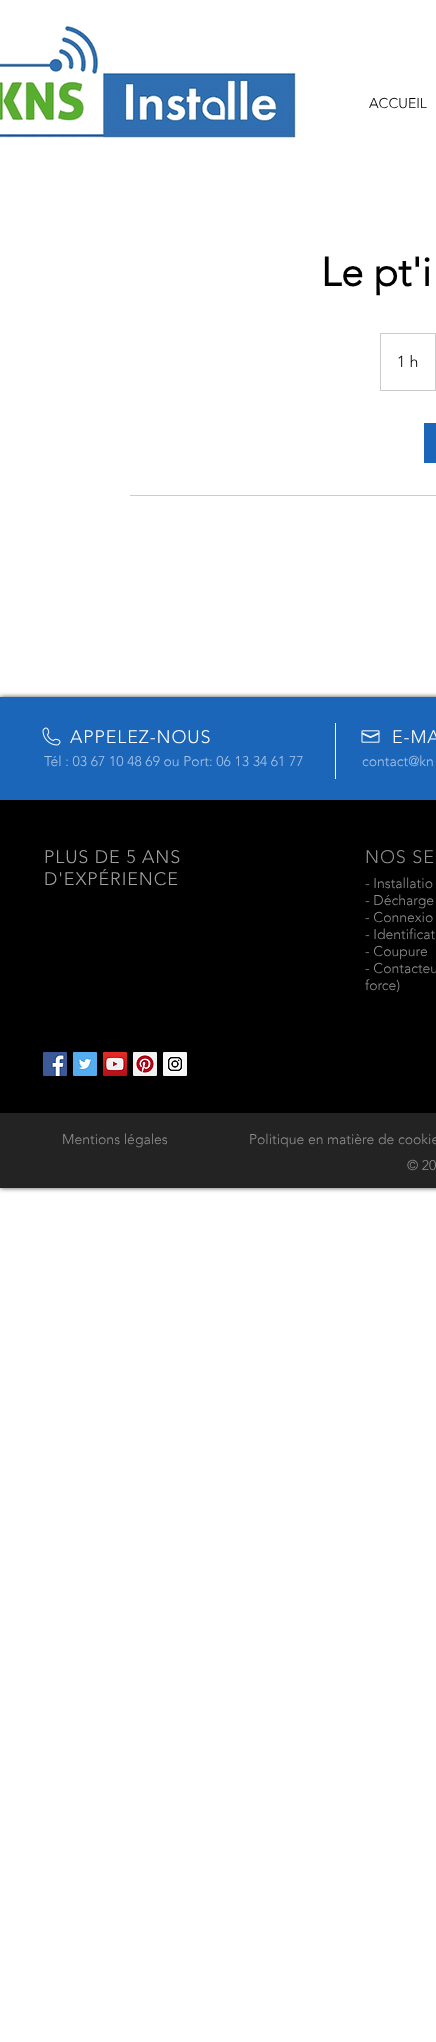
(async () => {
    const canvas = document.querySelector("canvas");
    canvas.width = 436;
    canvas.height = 2042;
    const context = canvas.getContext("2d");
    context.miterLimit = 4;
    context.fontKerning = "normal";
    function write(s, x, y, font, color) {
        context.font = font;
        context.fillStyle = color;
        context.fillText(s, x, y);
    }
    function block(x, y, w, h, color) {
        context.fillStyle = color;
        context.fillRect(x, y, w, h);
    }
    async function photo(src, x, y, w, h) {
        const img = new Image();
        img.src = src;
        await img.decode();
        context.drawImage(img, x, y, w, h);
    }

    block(0, 0, 436, 2042, "rgb(255, 255, 255)");
    await photo("media/1.png", 0, 26, 296, 112);
    write("ACCUEIL", 369, 108, "300 14px 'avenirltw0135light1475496'", "rgb(0, 0, 0)");
    write("Le pt'i", 321, 286, "bold 40px 'avenirltw0135light1475496'", "rgb(0, 0, 0)");
    context.strokeStyle = "rgb(204, 204, 204)";
    context.strokeRect(380.5, 333.5, 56, 57);
    write("1 h", 397, 367, "300 16px 'avenirltw0135light1475496'", "rgb(0, 0, 0)");
    context.fillStyle = "rgb(204, 204, 204)";
    context.beginPath();
    context.moveTo(435, 390);
    context.lineTo(435, 333);
    context.lineTo(436, 334);
    context.lineTo(436, 390);
    context.closePath();
    context.fill();
    block(424, 423, 12, 40, "rgb(28, 102, 186)");
    block(130, 495, 306, 1, "rgb(204, 204, 204)");
    context.fillStyle = "rgba(0, 0, 0, 0.7)";
    context.filter = "blur(2.5px)";
    context.beginPath();
    context.rect(0, 697, 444, 491);
    context.fill();
    context.filter = "none";
    block(0, 800, 436, 313, "rgb(0, 0, 0)");
    block(0, 697, 436, 103, "rgb(28, 102, 186)");
    await photo("media/2.png", 42, 727, 19, 19);
    context.letterSpacing = "0.9px";
    write("APPELEZ-NOUS", 70, 743, "300 18px 'avenirltw0135light1475496'", "rgb(255, 255, 255)");
    block(335, 723, 1, 56, "rgb(255, 255, 255)");
    await photo("media/3.png", 361, 730, 19, 13);
    write("E-MA", 392, 743, "300 18px 'avenirltw0135light1475496'", "rgb(255, 255, 255)");
    context.letterSpacing = "0px";
    write("Tél : 03 67 10 48 69 ou Port: 06 13 34 61 77", 44, 766, "300 14px 'avenirltw0135light1475496'", "rgb(166, 197, 232)");
    write("contact@kn", 362, 766, "300 14px 'avenirltw0135light1475496'", "rgb(166, 197, 232)");
    context.letterSpacing = "0.9px";
    write("PLUS DE 5 ANS", 44, 863, "300 18px 'avenirltw0135light1475496'", "rgb(160, 160, 159)");
    write("D'EXPÉRIENCE", 44, 885, "300 18px 'avenirltw0135light1475496'", "rgb(160, 160, 159)");
    write("NOS SE", 365, 863, "300 18px 'avenirltw0135light1475496'", "rgb(144, 144, 144)");
    context.letterSpacing = "0px";
    write("- Installatio", 365, 888, "300 14px 'avenirltw0135light1475496'", "rgb(144, 144, 144)");
    write("- Décharge", 365, 905, "300 14px 'avenirltw0135light1475496'", "rgb(144, 144, 144)");
    write("- Connexio", 365, 922, "300 14px 'avenirltw0135light1475496'", "rgb(144, 144, 144)");
    write("- Identificat", 365, 939, "300 14px 'avenirltw0135light1475496'", "rgb(144, 144, 144)");
    write("- Coupure", 365, 956, "300 14px 'avenirltw0135light1475496'", "rgb(144, 144, 144)");
    write("- Contacteu", 365, 973, "300 14px 'avenirltw0135light1475496'", "rgb(144, 144, 144)");
    write("force)", 365, 990, "300 14px 'avenirltw0135light1475496'", "rgb(144, 144, 144)");
    await photo("media/4.png", 43, 1052, 24, 24);
    await photo("media/5.png", 73, 1052, 24, 24);
    await photo("media/6.png", 103, 1052, 24, 24);
    await photo("media/7.png", 133, 1052, 24, 24);
    await photo("media/8.png", 163, 1052, 24, 24);
    block(0, 1113, 436, 75, "rgb(36, 35, 35)");
    write("Mentions légales", 62, 1144, "300 14px 'avenirltw0135light1475496'", "rgb(144, 144, 144)");
    write("Politique en matière de cookie", 249, 1144, "300 14px 'avenirltw0135light1475496'", "rgb(144, 144, 144)");
    write("© 20", 407, 1170, "300 14px 'avenirltw0135light1475496'", "rgb(144, 144, 144)");
})();
